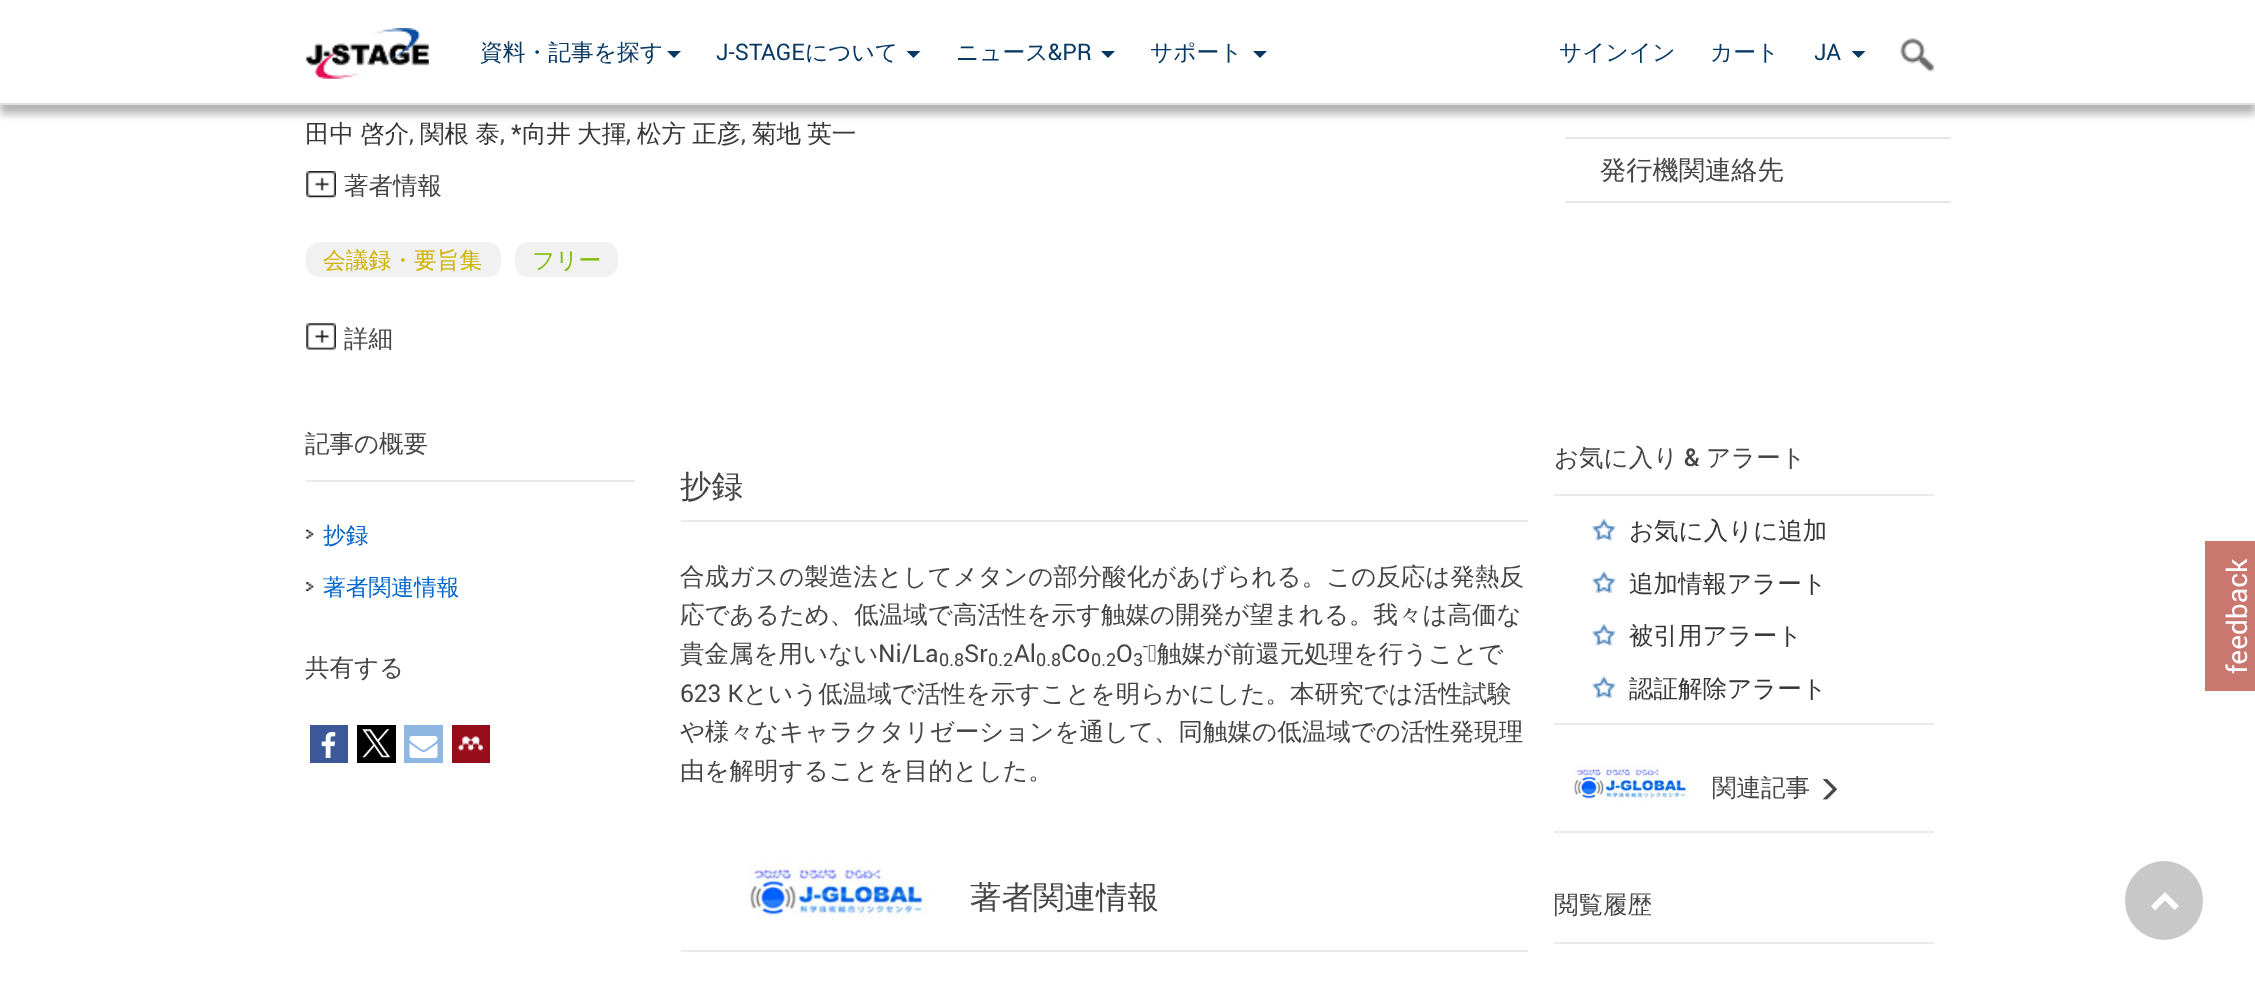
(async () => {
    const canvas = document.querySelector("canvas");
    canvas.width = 2255;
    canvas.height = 992;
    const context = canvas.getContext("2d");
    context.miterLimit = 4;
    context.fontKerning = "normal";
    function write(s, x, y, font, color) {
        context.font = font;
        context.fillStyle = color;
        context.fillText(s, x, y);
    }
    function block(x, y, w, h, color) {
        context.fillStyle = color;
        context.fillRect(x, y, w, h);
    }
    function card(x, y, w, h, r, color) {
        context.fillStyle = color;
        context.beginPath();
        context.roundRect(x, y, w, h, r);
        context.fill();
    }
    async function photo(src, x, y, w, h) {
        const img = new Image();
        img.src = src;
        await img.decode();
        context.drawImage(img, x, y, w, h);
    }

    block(0, 0, 2255, 992, "rgb(255, 255, 255)");
    context.fillStyle = "rgba(0, 0, 0, 0.3)";
    context.filter = "blur(4.5px)";
    context.beginPath();
    context.rect(0, 9, 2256, 105);
    context.fill();
    context.filter = "none";
    block(0, 1, 2255, 102, "rgb(255, 255, 255)");
    block(0, 103, 2255, 2, "rgb(224, 224, 224)");
    await photo("media/1.png", 305, 28, 124, 51);
    write("資料・記事を探す", 480, 60, "500 22.75px WenQuanYi Zen Hei", "rgb(9, 57, 99)");
    context.beginPath();
    context.moveTo(667, 51);
    context.lineTo(681, 51);
    context.lineTo(674, 58);
    context.closePath();
    context.fill();
    write("J-STAGE", 716, 60, "22.75px Roboto", "rgb(9, 57, 99)");
    write("について", 805, 60, "500 22.75px WenQuanYi Zen Hei", "rgb(9, 57, 99)");
    context.beginPath();
    context.moveTo(906.5, 51);
    context.lineTo(920.5, 51);
    context.lineTo(913.5, 58);
    context.closePath();
    context.fill();
    write("ニュース", 956, 60, "500 22.75px WenQuanYi Zen Hei", "rgb(9, 57, 99)");
    write("&PR", 1048, 60, "22.75px Roboto", "rgb(9, 57, 99)");
    context.beginPath();
    context.moveTo(1101, 51);
    context.lineTo(1115, 51);
    context.lineTo(1108, 58);
    context.closePath();
    context.fill();
    write("サポート", 1150, 60, "500 22.75px WenQuanYi Zen Hei", "rgb(9, 57, 99)");
    context.beginPath();
    context.moveTo(1253, 51);
    context.lineTo(1267, 51);
    context.lineTo(1260, 58);
    context.closePath();
    context.fill();
    write("サインイン", 1559, 60, "500 22.75px WenQuanYi Zen Hei", "rgb(9, 57, 99)");
    write("カート", 1710, 60, "500 22.75px WenQuanYi Zen Hei", "rgb(9, 57, 99)");
    write("JA", 1814, 60, "22.75px Roboto", "rgb(9, 57, 99)");
    context.beginPath();
    context.moveTo(1851.5, 51);
    context.lineTo(1865.5, 51);
    context.lineTo(1858.5, 58);
    context.closePath();
    context.fill();
    await photo("media/2.png", 1900, 38, 34, 34);
    context.wordSpacing = "-1px";
    write("田中 啓介", 305, 142, "500 24.5px WenQuanYi Zen Hei", "rgb(54, 54, 54)");
    write("関根 泰", 420, 142, "500 24.5px WenQuanYi Zen Hei", "rgb(54, 54, 54)");
    context.wordSpacing = "0px";
    write("*", 511, 142, "24.5px Roboto", "rgb(54, 54, 54)");
    context.wordSpacing = "-1px";
    write("向井 大揮", 522, 142, "500 24.5px WenQuanYi Zen Hei", "rgb(54, 54, 54)");
    write("松方 正彦", 637, 142, "500 24.5px WenQuanYi Zen Hei", "rgb(54, 54, 54)");
    write("菊地 英一", 752, 142, "500 24.5px WenQuanYi Zen Hei", "rgb(54, 54, 54)");
    context.wordSpacing = "0px";
    write(",", 409, 142, "24.5px Roboto", "rgb(69, 69, 69)");
    write(",", 500, 142, "24.5px Roboto", "rgb(69, 69, 69)");
    write(",", 626, 142, "24.5px Roboto", "rgb(69, 69, 69)");
    write(",", 741, 142, "24.5px Roboto", "rgb(69, 69, 69)");
    await photo("media/3.png", 306, 171, 30, 27);
    write("著者情報", 344, 194, "500 24.5px WenQuanYi Zen Hei", "rgb(69, 69, 69)");
    card(306, 242, 195, 35, 14, "rgb(241, 241, 241)");
    write("会議録・要旨集", 323, 268, "500 22.75px WenQuanYi Zen Hei", "rgb(206, 179, 1)");
    card(515, 242, 103, 35, 14, "rgb(241, 241, 241)");
    write("フリー", 532, 268, "500 22.75px WenQuanYi Zen Hei", "rgb(127, 186, 0)");
    await photo("media/4.png", 306, 323, 30, 27);
    write("詳細", 344, 347, "500 24.5px WenQuanYi Zen Hei", "rgb(69, 69, 69)");
    block(1566, 137, 385, 2, "rgb(230, 230, 230)");
    write("発行機関連絡先", 1600, 179, "500 26.25px WenQuanYi Zen Hei", "rgb(69, 69, 69)");
    block(1566, 201, 385, 2, "rgb(230, 230, 230)");
    block(306, 480, 329, 2, "rgb(235, 235, 235)");
    write("記事の概要", 305, 452, "500 24.5px WenQuanYi Zen Hei", "rgb(69, 69, 69)");
    await photo("media/5.png", 306, 529, 8, 10);
    write("抄録", 323, 543, "500 22.75px WenQuanYi Zen Hei", "rgb(0, 102, 204)");
    await photo("media/6.png", 306, 582, 8, 9);
    write("著者関連情報", 323, 595, "500 22.75px WenQuanYi Zen Hei", "rgb(0, 102, 204)");
    write("共有する", 305, 676, "500 24.5px WenQuanYi Zen Hei", "rgb(69, 69, 69)");
    block(310, 725, 38, 38, "rgb(59, 89, 153)");
    await photo("media/7.png", 321, 732, 15, 26);
    block(357, 725, 39, 38, "rgb(0, 0, 0)");
    await photo("media/8.png", 362, 729, 29, 29);
    block(404, 725, 39, 38, "rgb(143, 183, 227)");
    await photo("media/9.png", 409, 736, 29, 22);
    block(452, 725, 38, 38, "rgb(151, 13, 26)");
    await photo("media/10.png", 457, 736, 27, 15);
    block(681, 520, 847, 2, "rgb(235, 235, 235)");
    write("抄録", 680, 497, "500 31.5px WenQuanYi Zen Hei", "rgb(69, 69, 69)");
    write("合成ガスの製造法としてメタンの部分酸化があげられる。この反応は発熱反", 680, 585, "500 24.5px WenQuanYi Zen Hei", "rgb(69, 69, 69)");
    write("応であるため、低温域で高活性を示す触媒の開発が望まれる。我々は高価な", 680, 623, "500 24.5px WenQuanYi Zen Hei", "rgb(69, 69, 69)");
    write("貴金属を用いない", 680, 662, "500 24.5px WenQuanYi Zen Hei", "rgb(69, 69, 69)");
    write("Ni/La", 878, 662, "24.5px Roboto", "rgb(69, 69, 69)");
    write("0.8", 939, 666, "18px Roboto", "rgb(69, 69, 69)");
    write("Sr", 964, 662, "24.5px Roboto", "rgb(69, 69, 69)");
    write("0.2", 988, 666, "18px Roboto", "rgb(69, 69, 69)");
    write("Al", 1014, 662, "24.5px Roboto", "rgb(69, 69, 69)");
    write("0.8", 1036, 666, "18px Roboto", "rgb(69, 69, 69)");
    write("Co", 1061, 662, "24.5px Roboto", "rgb(69, 69, 69)");
    write("0.2", 1091, 666, "18px Roboto", "rgb(69, 69, 69)");
    write("O", 1116, 662, "24.5px Roboto", "rgb(69, 69, 69)");
    write("3", 1133, 666, "18px Roboto", "rgb(69, 69, 69)");
    await photo("media/11.png", 1148, 645, 8, 17);
    write("-", 1143, 652, "18px Roboto", "rgb(69, 69, 69)");
    write("触媒が前還元処理を行うことで", 1157, 662, "500 24.5px WenQuanYi Zen Hei", "rgb(69, 69, 69)");
    write("623 K", 680, 702, "24.5px Roboto", "rgb(69, 69, 69)");
    write("という低温域で活性を示すことを明らかにした。本研究では活性試験", 743, 702, "500 24.5px WenQuanYi Zen Hei", "rgb(69, 69, 69)");
    write("や様々なキャラクタリゼーションを通して、同触媒の低温域での活性発現理", 680, 740, "500 24.5px WenQuanYi Zen Hei", "rgb(69, 69, 69)");
    write("由を解明することを目的とした。", 680, 779, "500 24.5px WenQuanYi Zen Hei", "rgb(69, 69, 69)");
    block(681, 950, 847, 2, "rgb(235, 235, 235)");
    await photo("media/12.png", 747, 863, 182, 55);
    write("著者関連情報", 970, 908, "500 31.5px WenQuanYi Zen Hei", "rgb(69, 69, 69)");
    block(1554, 494, 380, 2, "rgb(235, 235, 235)");
    write("お気に入り", 1554, 466, "500 24.5px WenQuanYi Zen Hei", "rgb(69, 69, 69)");
    write("&", 1684, 466, "500 24.5px Roboto", "rgb(69, 69, 69)");
    write("アラート", 1706, 466, "500 24.5px WenQuanYi Zen Hei", "rgb(69, 69, 69)");
    block(1554, 723, 380, 2, "rgb(235, 235, 235)");
    await photo("media/13.png", 1592, 519, 24, 22);
    write("お気に入りに追加", 1629, 539, "500 24.5px WenQuanYi Zen Hei", "rgb(54, 54, 54)");
    await photo("media/14.png", 1592, 571, 24, 22);
    write("追加情報アラート", 1629, 592, "500 24.5px WenQuanYi Zen Hei", "rgb(54, 54, 54)");
    await photo("media/13.png", 1592, 624, 24, 22);
    write("被引用アラート", 1629, 644, "500 24.5px WenQuanYi Zen Hei", "rgb(54, 54, 54)");
    await photo("media/14.png", 1592, 676, 24, 22);
    write("認証解除アラート", 1629, 697, "500 24.5px WenQuanYi Zen Hei", "rgb(54, 54, 54)");
    block(1554, 831, 380, 2, "rgb(235, 235, 235)");
    await photo("media/15.png", 1572, 765, 118, 36);
    write("関連記事", 1712, 796, "500 24.5px WenQuanYi Zen Hei", "rgb(69, 69, 69)");
    await photo("media/16.png", 1823, 779, 14, 21);
    block(1554, 942, 380, 2, "rgb(235, 235, 235)");
    write("閲覧履歴", 1554, 913, "500 24.5px WenQuanYi Zen Hei", "rgb(69, 69, 69)");
    block(2205, 541, 50, 150, "rgb(202, 119, 112)");
    context.font = "28px Roboto";
    context.fillStyle = "rgb(255, 255, 255)";
    context.save();
    context.translate(2247, 674);
    context.rotate(-90 * Math.PI / 180);
    context.fillText("feedback", 0, 0);
    context.restore();
    card(2125, 861, 78, 79, 39, "rgba(145, 145, 145, 0.5)");
    context.fillStyle = "rgb(255, 255, 255)";
    context.beginPath();
    context.moveTo(2165, 892);
    context.lineTo(2179, 906);
    context.lineTo(2174.5, 910);
    context.lineTo(2165, 900.5);
    context.lineTo(2155, 910.5);
    context.lineTo(2151, 906);
    context.closePath();
    context.fill();
})();
